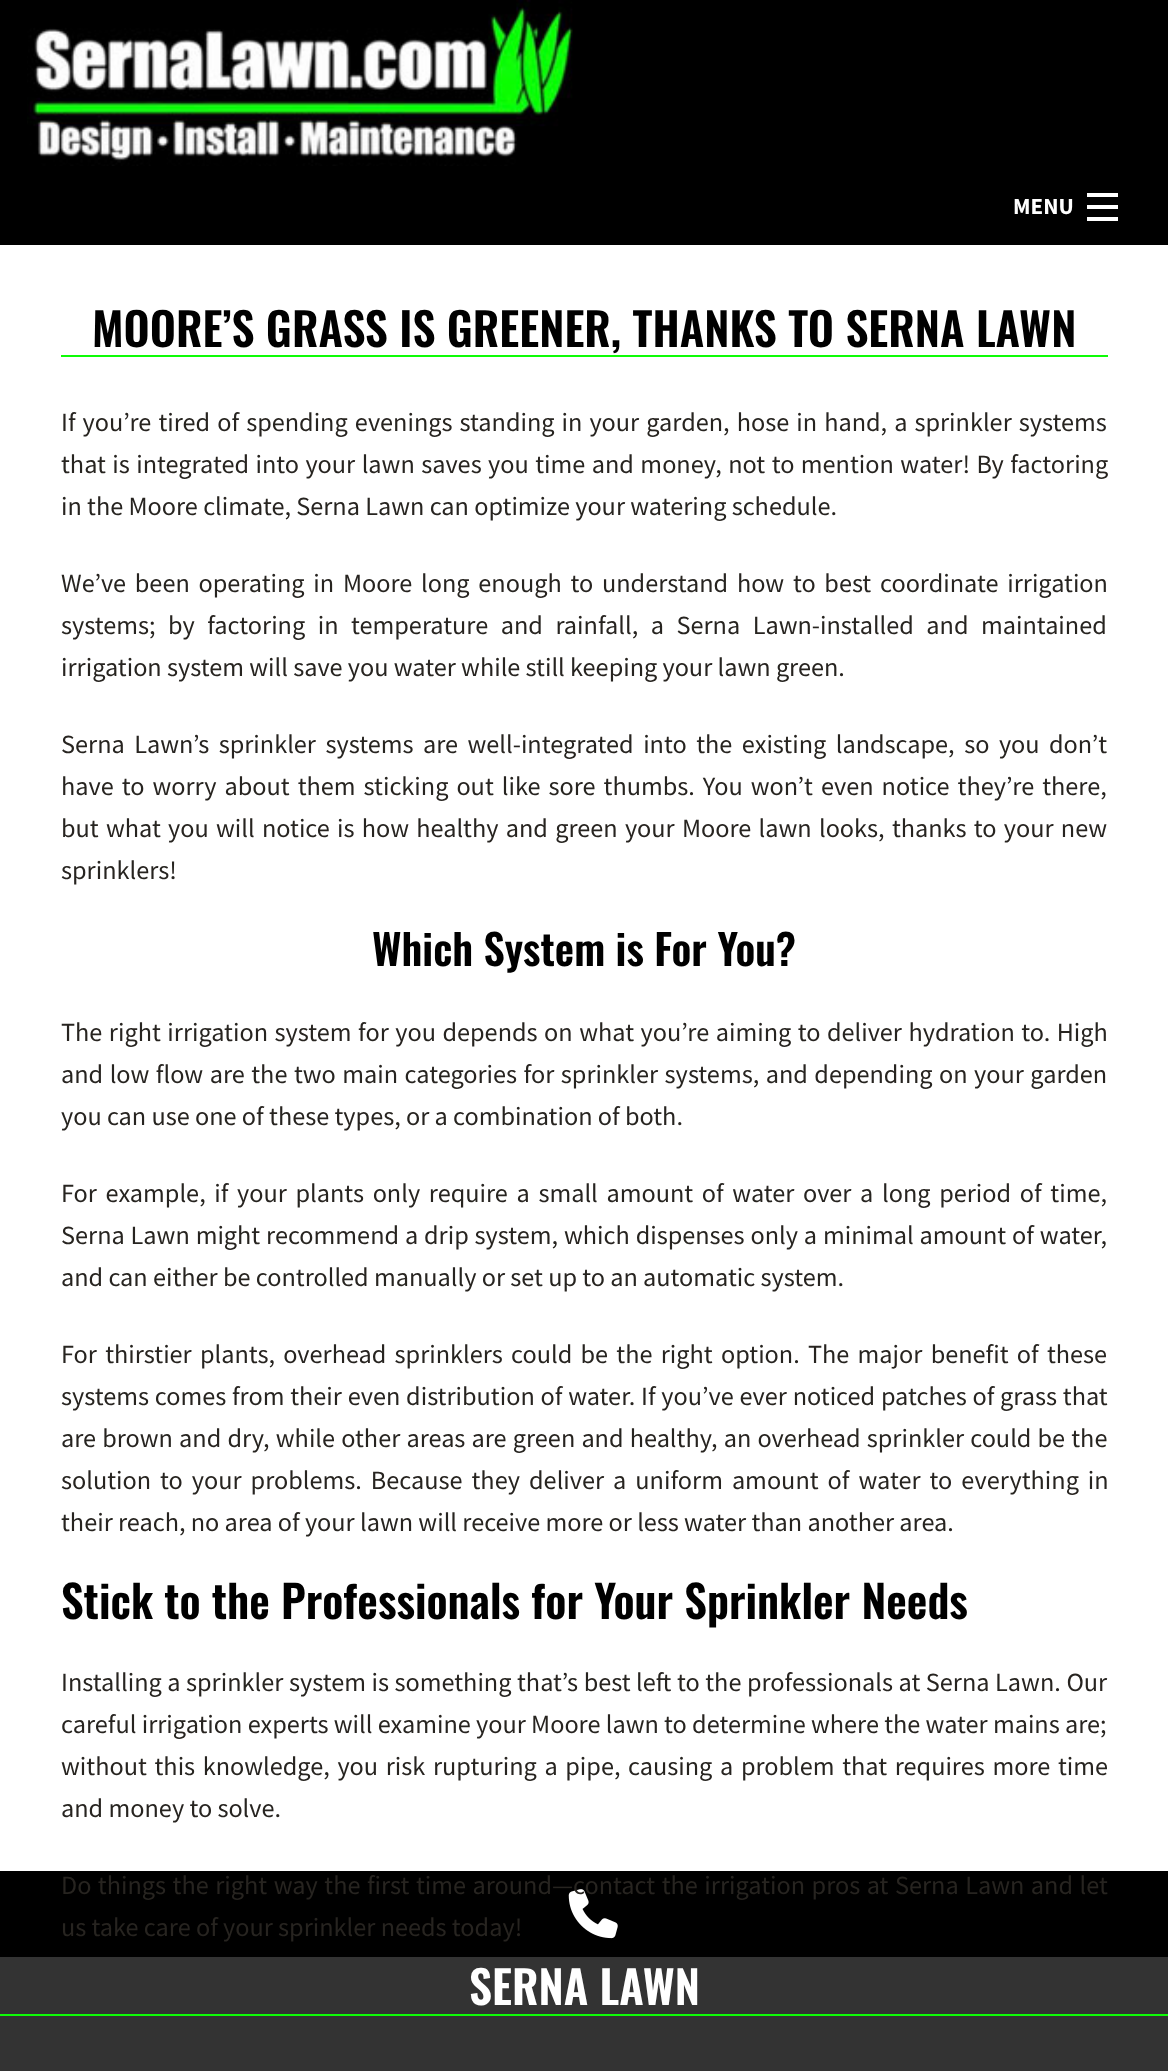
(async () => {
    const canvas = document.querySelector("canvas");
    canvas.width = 1168;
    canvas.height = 2071;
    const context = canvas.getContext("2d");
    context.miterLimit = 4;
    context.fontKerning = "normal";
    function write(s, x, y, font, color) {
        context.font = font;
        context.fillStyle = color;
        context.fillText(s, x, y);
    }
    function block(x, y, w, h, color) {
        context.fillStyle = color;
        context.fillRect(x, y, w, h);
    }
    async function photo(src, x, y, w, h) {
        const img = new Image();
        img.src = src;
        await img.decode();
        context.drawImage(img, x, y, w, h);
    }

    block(0, 0, 1168, 2071, "rgb(255, 255, 255)");
    block(0, 0, 1168, 245, "rgb(0, 0, 0)");
    await photo("media/1.png", 27, 0, 546, 166);
    write("MENU", 1013, 214, "bold 23px Source Sans Pro", "rgb(255, 255, 255)");
    block(1087, 217, 31, 4, "rgb(255, 255, 255)");
    block(1087, 205, 31, 4, "rgb(255, 255, 255)");
    block(1087, 193, 31, 4, "rgb(255, 255, 255)");
    block(61, 355, 1047, 2, "rgb(14, 252, 6)");
    write("MOORE’S GRASS IS GREENER, THANKS TO SERNA LAWN", 92, 347, "600 45.5px Oswald", "rgb(0, 0, 0)");
    context.wordSpacing = "1.8px";
    write("If you’re tired of spending evenings standing in your garden, hose in hand, a sprinkler systems", 61, 431, "26.25px Source Sans Pro", "rgb(39, 36, 32)");
    context.wordSpacing = "1.2px";
    write("that is integrated into your lawn saves you time and money, not to mention water! By factoring", 61, 473, "26.25px Source Sans Pro", "rgb(39, 36, 32)");
    context.wordSpacing = "0px";
    write("in the Moore climate, Serna Lawn can optimize your watering schedule.", 61, 515, "26.25px Source Sans Pro", "rgb(39, 36, 32)");
    context.wordSpacing = "3.5px";
    write("We’ve been operating in Moore long enough to understand how to best coordinate irrigation", 61, 592, "26.25px Source Sans Pro", "rgb(39, 36, 32)");
    context.wordSpacing = "7.25px";
    write("systems; by factoring in temperature and rainfall, a Serna Lawn-installed and maintained", 61, 634, "26.25px Source Sans Pro", "rgb(39, 36, 32)");
    context.wordSpacing = "0px";
    write("irrigation system will save you water while still keeping your lawn green.", 61, 676, "26.25px Source Sans Pro", "rgb(39, 36, 32)");
    context.wordSpacing = "4.25px";
    write("Serna Lawn’s sprinkler systems are well-integrated into the existing landscape, so you don’t", 61, 753, "26.25px Source Sans Pro", "rgb(39, 36, 32)");
    context.wordSpacing = "2.75px";
    write("have to worry about them sticking out like sore thumbs. You won’t even notice they’re there,", 61, 795, "26.25px Source Sans Pro", "rgb(39, 36, 32)");
    context.wordSpacing = "2px";
    write("but what you will notice is how healthy and green your Moore lawn looks, thanks to your new", 61, 837, "26.25px Source Sans Pro", "rgb(39, 36, 32)");
    context.wordSpacing = "0px";
    write("sprinklers!", 61, 879, "26.25px Source Sans Pro", "rgb(39, 36, 32)");
    write("Which System is For You?", 372, 966, "600 42px Oswald", "rgb(0, 0, 0)");
    context.wordSpacing = "1.25px";
    write("The right irrigation system for you depends on what you’re aiming to deliver hydration to. High", 61, 1041, "26.25px Source Sans Pro", "rgb(39, 36, 32)");
    write("and low flow are the two main categories for sprinkler systems, and depending on your garden", 61, 1083, "26.25px Source Sans Pro", "rgb(39, 36, 32)");
    context.wordSpacing = "0px";
    write("you can use one of these types, or a combination of both.", 61, 1125, "26.25px Source Sans Pro", "rgb(39, 36, 32)");
    context.wordSpacing = "3.4px";
    write("For example, if your plants only require a small amount of water over a long period of time,", 61, 1202, "26.25px Source Sans Pro", "rgb(39, 36, 32)");
    context.wordSpacing = "0.6px";
    write("Serna Lawn might recommend a drip system, which dispenses only a minimal amount of water,", 61, 1244, "26.25px Source Sans Pro", "rgb(39, 36, 32)");
    context.wordSpacing = "0px";
    write("and can either be controlled manually or set up to an automatic system.", 61, 1286, "26.25px Source Sans Pro", "rgb(39, 36, 32)");
    context.wordSpacing = "3px";
    write("For thirstier plants, overhead sprinklers could be the right option. The major benefit of these", 61, 1363, "26.25px Source Sans Pro", "rgb(39, 36, 32)");
    context.wordSpacing = "0.5px";
    write("systems comes from their even distribution of water. If you’ve ever noticed patches of grass that", 61, 1405, "26.25px Source Sans Pro", "rgb(39, 36, 32)");
    context.wordSpacing = "0.9px";
    write("are brown and dry, while other areas are green and healthy, an overhead sprinkler could be the", 61, 1447, "26.25px Source Sans Pro", "rgb(39, 36, 32)");
    context.wordSpacing = "3.75px";
    write("solution to your problems. Because they deliver a uniform amount of water to everything in", 61, 1489, "26.25px Source Sans Pro", "rgb(39, 36, 32)");
    context.wordSpacing = "0px";
    write("their reach, no area of your lawn will receive more or less water than another area.", 61, 1531, "26.25px Source Sans Pro", "rgb(39, 36, 32)");
    write("Stick to the Professionals for Your Sprinkler Needs", 61, 1619, "600 44.8px Oswald", "rgb(0, 0, 0)");
    context.wordSpacing = "0.3px";
    write("Installing a sprinkler system is something that’s best left to the professionals at Serna Lawn. Our", 61, 1691, "26.25px Source Sans Pro", "rgb(39, 36, 32)");
    context.wordSpacing = "0px";
    write("careful irrigation experts will examine your Moore lawn to determine where the water mains are;", 61, 1733, "26.25px Source Sans Pro", "rgb(39, 36, 32)");
    context.wordSpacing = "2.4px";
    write("without this knowledge, you risk rupturing a pipe, causing a problem that requires more time", 61, 1775, "26.25px Source Sans Pro", "rgb(39, 36, 32)");
    context.wordSpacing = "0px";
    write("and money to solve.", 61, 1817, "26.25px Source Sans Pro", "rgb(39, 36, 32)");
    block(0, 1871, 1168, 86, "rgb(0, 0, 0)");
    await photo("media/2.png", 568, 1889, 50, 50);
    context.wordSpacing = "1.25px";
    write("Do things the right way the first time around—contact the irrigation pros at Serna Lawn and let", 61, 1894, "26.25px Source Sans Pro", "rgb(39, 36, 32)");
    context.wordSpacing = "0px";
    write("us take care of your sprinkler needs today!", 61, 1936, "26.25px Source Sans Pro", "rgb(39, 36, 32)");
    block(0, 1957, 1168, 114, "rgb(51, 51, 51)");
    block(0, 2014, 1168, 2, "rgb(14, 252, 6)");
    write("SERNA LAWN", 469, 2005, "600 45.5px Oswald", "rgb(255, 255, 255)");
})();
